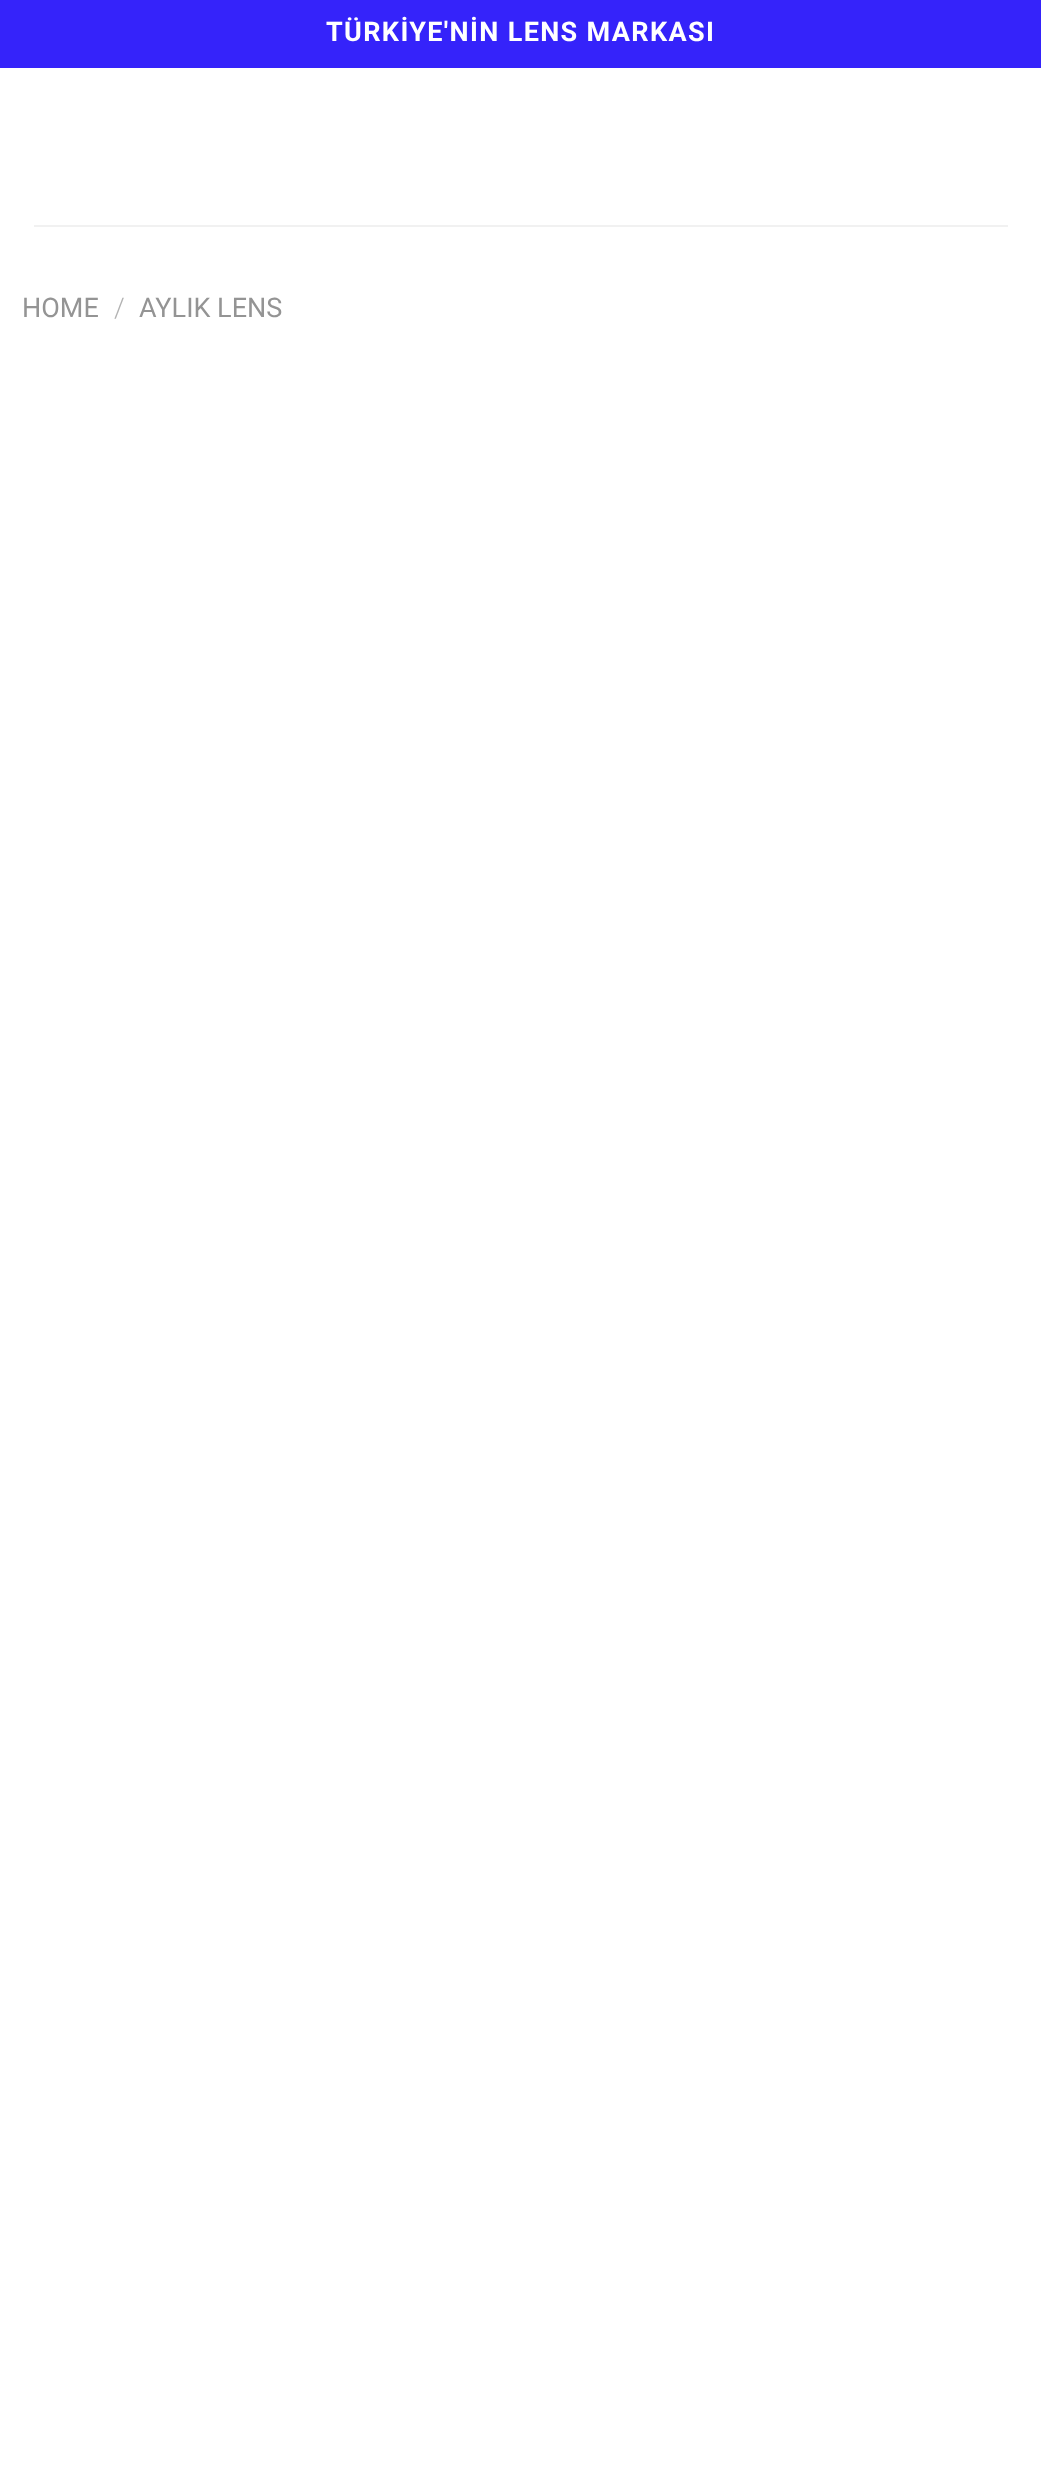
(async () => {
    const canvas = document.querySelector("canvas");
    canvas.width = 1041;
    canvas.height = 2479;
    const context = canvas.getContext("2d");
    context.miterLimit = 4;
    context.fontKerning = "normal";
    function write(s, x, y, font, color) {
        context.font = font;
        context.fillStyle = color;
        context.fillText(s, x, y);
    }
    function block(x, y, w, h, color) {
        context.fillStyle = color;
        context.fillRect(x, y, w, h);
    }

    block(0, 0, 1041, 2479, "rgb(255, 255, 255)");
    block(0, 0, 1041, 68, "rgb(53, 35, 250)");
    context.letterSpacing = "1.35px";
    write("TÜRKİYE'NİN LENS MARKASI", 326, 41, "bold 27px Roboto", "rgb(255, 255, 255)");
    block(34, 225, 974, 2, "rgb(241, 241, 241)");
    context.letterSpacing = "0px";
    write("HOME", 22, 317, "27px Roboto", "rgb(148, 148, 148)");
    write("/", 114, 317, "300 27px Roboto", "rgb(178, 178, 178)");
    write("AYLIK LENS", 139, 317, "27px Roboto", "rgb(148, 148, 148)");
})();
